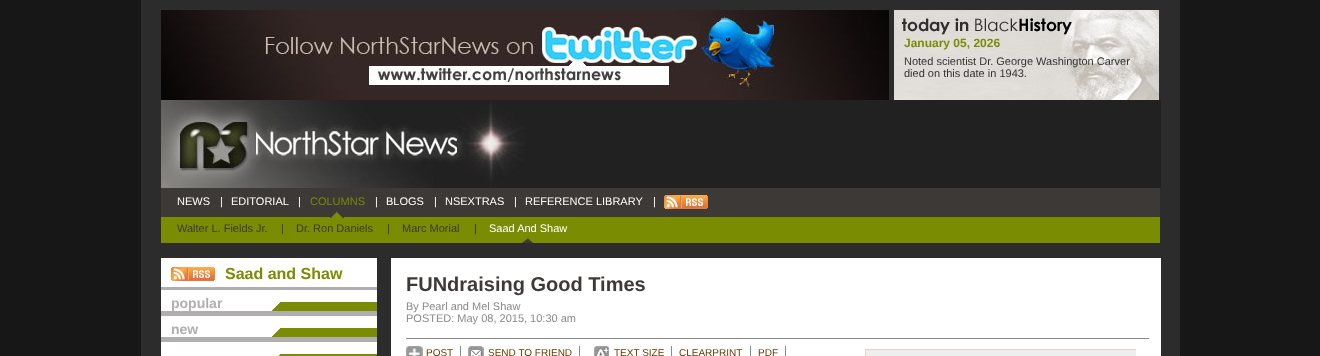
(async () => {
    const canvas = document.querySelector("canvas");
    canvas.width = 1320;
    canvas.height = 356;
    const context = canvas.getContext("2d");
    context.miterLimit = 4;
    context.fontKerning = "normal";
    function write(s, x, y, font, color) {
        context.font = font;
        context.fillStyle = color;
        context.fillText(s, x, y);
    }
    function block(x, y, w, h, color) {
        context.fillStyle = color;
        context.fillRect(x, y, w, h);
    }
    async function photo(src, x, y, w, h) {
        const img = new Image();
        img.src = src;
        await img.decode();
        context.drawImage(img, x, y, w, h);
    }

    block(0, 0, 1320, 356, "rgb(23, 23, 23)");
    block(141, 0, 1039, 356, "rgb(44, 44, 44)");
    await photo("media/1.png", 161, 10, 728, 90);
    await photo("media/2.png", 894, 10, 265, 90);
    write("January 05, 2026", 904, 47, "bold 12px Liberation Sans", "rgb(122, 140, 2)");
    write("Noted scientist Dr. George Washington Carver", 904, 65, "11px Liberation Sans", "rgb(51, 51, 51)");
    write("died on this date in 1943.", 904, 77, "11px Liberation Sans", "rgb(51, 51, 51)");
    block(525, 100, 636, 88, "rgb(33, 33, 33)");
    await photo("media/3.png", 161, 100, 364, 88);
    block(161, 188, 999, 29, "rgb(61, 57, 55)");
    block(161, 217, 999, 26, "rgb(122, 140, 2)");
    await photo("media/4.png", 330, 211, 14, 7);
    write("COLUMNS", 310, 205, "11px Liberation Sans", "rgb(122, 140, 2)");
    write("Walter L. Fields Jr.", 177, 232, "11px Liberation Sans", "rgb(61, 57, 55)");
    write("|", 281, 232, "11px Liberation Sans", "rgb(61, 57, 55)");
    write("Dr. Ron Daniels", 296, 232, "11px Liberation Sans", "rgb(61, 57, 55)");
    write("|", 387, 232, "11px Liberation Sans", "rgb(61, 57, 55)");
    write("Marc Morial", 402, 232, "11px Liberation Sans", "rgb(61, 57, 55)");
    write("|", 474, 232, "11px Liberation Sans", "rgb(61, 57, 55)");
    await photo("media/5.png", 522, 238, 12, 5);
    write("Saad And Shaw", 489, 232, "11px Liberation Sans", "rgb(255, 255, 255)");
    await photo("media/6.png", 664, 195, 44, 14);
    write("NEWS", 177, 205, "11px Liberation Sans", "rgb(255, 255, 255)");
    write("|", 220, 205, "11px Liberation Sans", "rgb(255, 255, 255)");
    write("EDITORIAL", 231, 205, "11px Liberation Sans", "rgb(255, 255, 255)");
    write("|", 298, 205, "11px Liberation Sans", "rgb(255, 255, 255)");
    write("|", 375, 205, "11px Liberation Sans", "rgb(255, 255, 255)");
    write("BLOGS", 386, 205, "11px Liberation Sans", "rgb(255, 255, 255)");
    write("|", 434, 205, "11px Liberation Sans", "rgb(255, 255, 255)");
    write("NSEXTRAS", 445, 205, "11px Liberation Sans", "rgb(255, 255, 255)");
    write("|", 514, 205, "11px Liberation Sans", "rgb(255, 255, 255)");
    write("REFERENCE LIBRARY", 525, 205, "11px Liberation Sans", "rgb(255, 255, 255)");
    write("|", 653, 205, "11px Liberation Sans", "rgb(255, 255, 255)");
    await photo("media/7.png", 161, 258, 1000, 98);
    await photo("media/8.png", 171, 267, 44, 14);
    write("Saad and Shaw", 225, 279, "bold 16px Liberation Sans", "rgb(122, 140, 2)");
    block(161, 287, 216, 3, "rgb(176, 174, 174)");
    await photo("media/9.png", 272, 302, 105, 9);
    block(161, 311, 216, 5, "rgb(176, 174, 174)");
    write("popular", 171, 308, "bold 14px Liberation Sans", "rgb(176, 174, 174)");
    await photo("media/9.png", 272, 328, 105, 9);
    block(161, 337, 216, 5, "rgb(176, 174, 174)");
    write("new", 171, 334, "bold 14px Liberation Sans", "rgb(176, 174, 174)");
    await photo("media/10.png", 279, 354, 98, 2);
    write("FUNdraising Good Times", 406, 291, "bold 20px Liberation Sans", "rgb(61, 57, 55)");
    write("By Pearl and Mel Shaw", 406, 310, "11px Liberation Sans", "rgb(137, 137, 137)");
    write("POSTED: May 08, 2015, 10:30 am", 406, 322, "11px Liberation Sans", "rgb(137, 137, 137)");
    block(406, 338, 743, 1, "rgb(137, 137, 137)");
    block(865, 350, 271, 6, "rgb(238, 238, 238)");
    block(865, 349, 271, 1, "rgb(225, 212, 201)");
    block(865, 349, 1, 7, "rgb(225, 212, 201)");
    await photo("media/11.png", 406, 346, 17, 10);
    block(460, 346, 1, 10, "rgb(137, 137, 137)");
    write("POST", 426, 356, "10px Liberation Sans", "rgb(103, 57, 1)");
    await photo("media/12.png", 468, 346, 16, 10);
    block(579, 346, 1, 10, "rgb(137, 137, 137)");
    write("SEND TO FRIEND", 488, 356, "10px Liberation Sans", "rgb(103, 57, 1)");
    await photo("media/13.png", 594, 346, 16, 10);
    block(671, 346, 1, 10, "rgb(137, 137, 137)");
    write("TEXT SIZE", 614, 356, "10px Liberation Sans", "rgb(103, 57, 1)");
    block(750, 346, 1, 10, "rgb(137, 137, 137)");
    write("CLEARPRINT", 679, 356, "10px Liberation Sans", "rgb(103, 57, 1)");
    block(785, 346, 1, 10, "rgb(137, 137, 137)");
    write("PDF", 758, 356, "10px Liberation Sans", "rgb(103, 57, 1)");
})();
